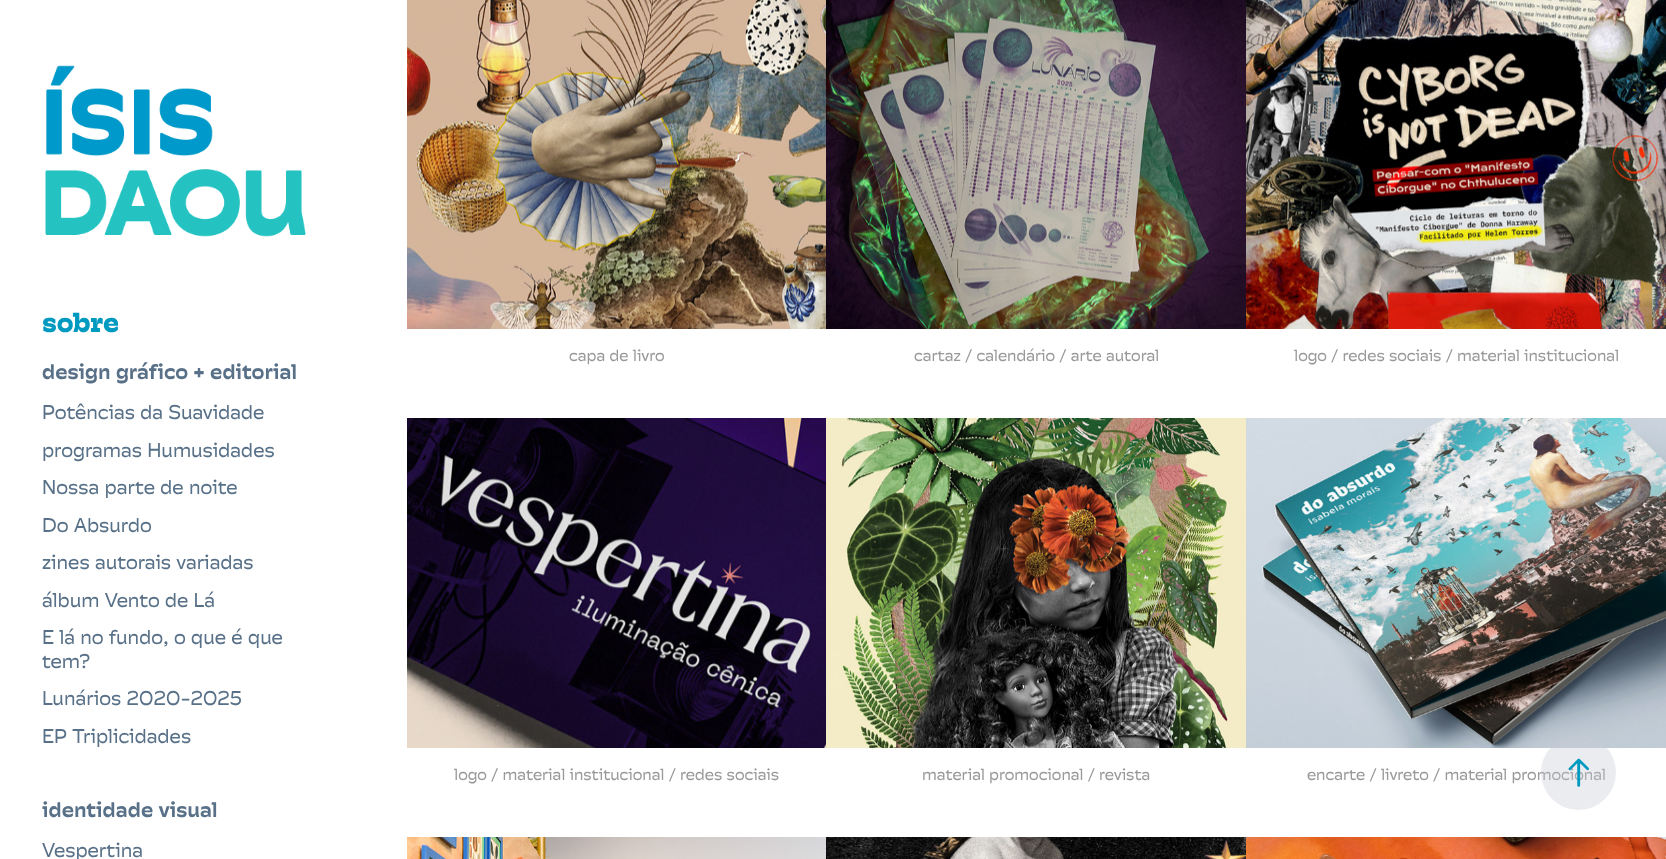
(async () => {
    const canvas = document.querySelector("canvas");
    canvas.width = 1666;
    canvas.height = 859;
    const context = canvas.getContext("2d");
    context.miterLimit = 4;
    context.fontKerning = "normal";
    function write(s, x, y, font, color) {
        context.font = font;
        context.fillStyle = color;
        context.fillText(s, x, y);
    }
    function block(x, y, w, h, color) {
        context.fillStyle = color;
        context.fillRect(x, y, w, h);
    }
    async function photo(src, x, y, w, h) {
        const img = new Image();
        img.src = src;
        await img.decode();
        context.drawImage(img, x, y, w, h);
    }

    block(0, 0, 1666, 859, "rgb(255, 255, 255)");
    await photo("media/1.png", 45, 65, 261, 172);
    write("sobre", 42, 332, "bold 27.5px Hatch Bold", "rgb(0, 153, 191)");
    write("design gráfico + editorial", 42, 379, "600 21.25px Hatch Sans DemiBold", "rgb(89, 113, 136)");
    write("Potências da Suavidade", 42, 419, "20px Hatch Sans", "rgb(89, 113, 136)");
    write("programas Humusidades", 42, 457, "20px Hatch Sans", "rgb(89, 113, 136)");
    write("Nossa parte de noite", 42, 494, "20px Hatch Sans", "rgb(89, 113, 136)");
    write("Do Absurdo", 42, 532, "20px Hatch Sans", "rgb(89, 113, 136)");
    write("zines autorais variadas", 42, 569, "20px Hatch Sans", "rgb(89, 113, 136)");
    write("álbum Vento de Lá", 42, 607, "20px Hatch Sans", "rgb(89, 113, 136)");
    write("E lá no fundo, o que é que", 42, 644, "20px Hatch Sans", "rgb(89, 113, 136)");
    write("tem?", 42, 668, "20px Hatch Sans", "rgb(89, 113, 136)");
    write("Lunários 2020-2025", 42, 705, "20px Hatch Sans", "rgb(89, 113, 136)");
    write("EP Triplicidades", 42, 743, "20px Hatch Sans", "rgb(89, 113, 136)");
    write("identidade visual", 42, 817, "600 21.25px Hatch Sans DemiBold", "rgb(89, 113, 136)");
    write("Vespertina", 42, 857, "20px Hatch Sans", "rgb(89, 113, 136)");
    await photo("media/2.png", 407, 0, 419, 329);
    write("capa de livro", 569, 361, "16.25px Hatch Sans", "rgb(153, 153, 153)");
    await photo("media/3.png", 826, 0, 420, 329);
    write("cartaz / calendário / arte autoral", 914, 361, "16.25px Hatch Sans", "rgb(153, 153, 153)");
    await photo("media/4.png", 1246, 0, 420, 329);
    write("logo / redes sociais / material institucional", 1294, 361, "16.25px Hatch Sans", "rgb(153, 153, 153)");
    await photo("media/5.png", 407, 418, 419, 330);
    write("logo / material institucional / redes sociais", 454, 780, "16.25px Hatch Sans", "rgb(153, 153, 153)");
    await photo("media/6.png", 826, 418, 420, 330);
    write("material promocional / revista", 922, 780, "16.25px Hatch Sans", "rgb(153, 153, 153)");
    await photo("media/7.png", 1246, 418, 420, 330);
    write("encarte / livreto / material promocional", 1307, 780, "16.25px Hatch Sans", "rgb(153, 153, 153)");
    await photo("media/8.png", 407, 837, 419, 22);
    await photo("media/9.png", 826, 837, 420, 22);
    await photo("media/10.png", 1246, 837, 420, 22);
    context.fillStyle = "rgba(199, 203, 210, 0.36)";
    context.beginPath();
    context.arc(1578.5, 772.5, 37.5, 0, Math.PI * 2);
    context.fill();
    await photo("media/11.png", 1568, 758, 21, 29);
})();
